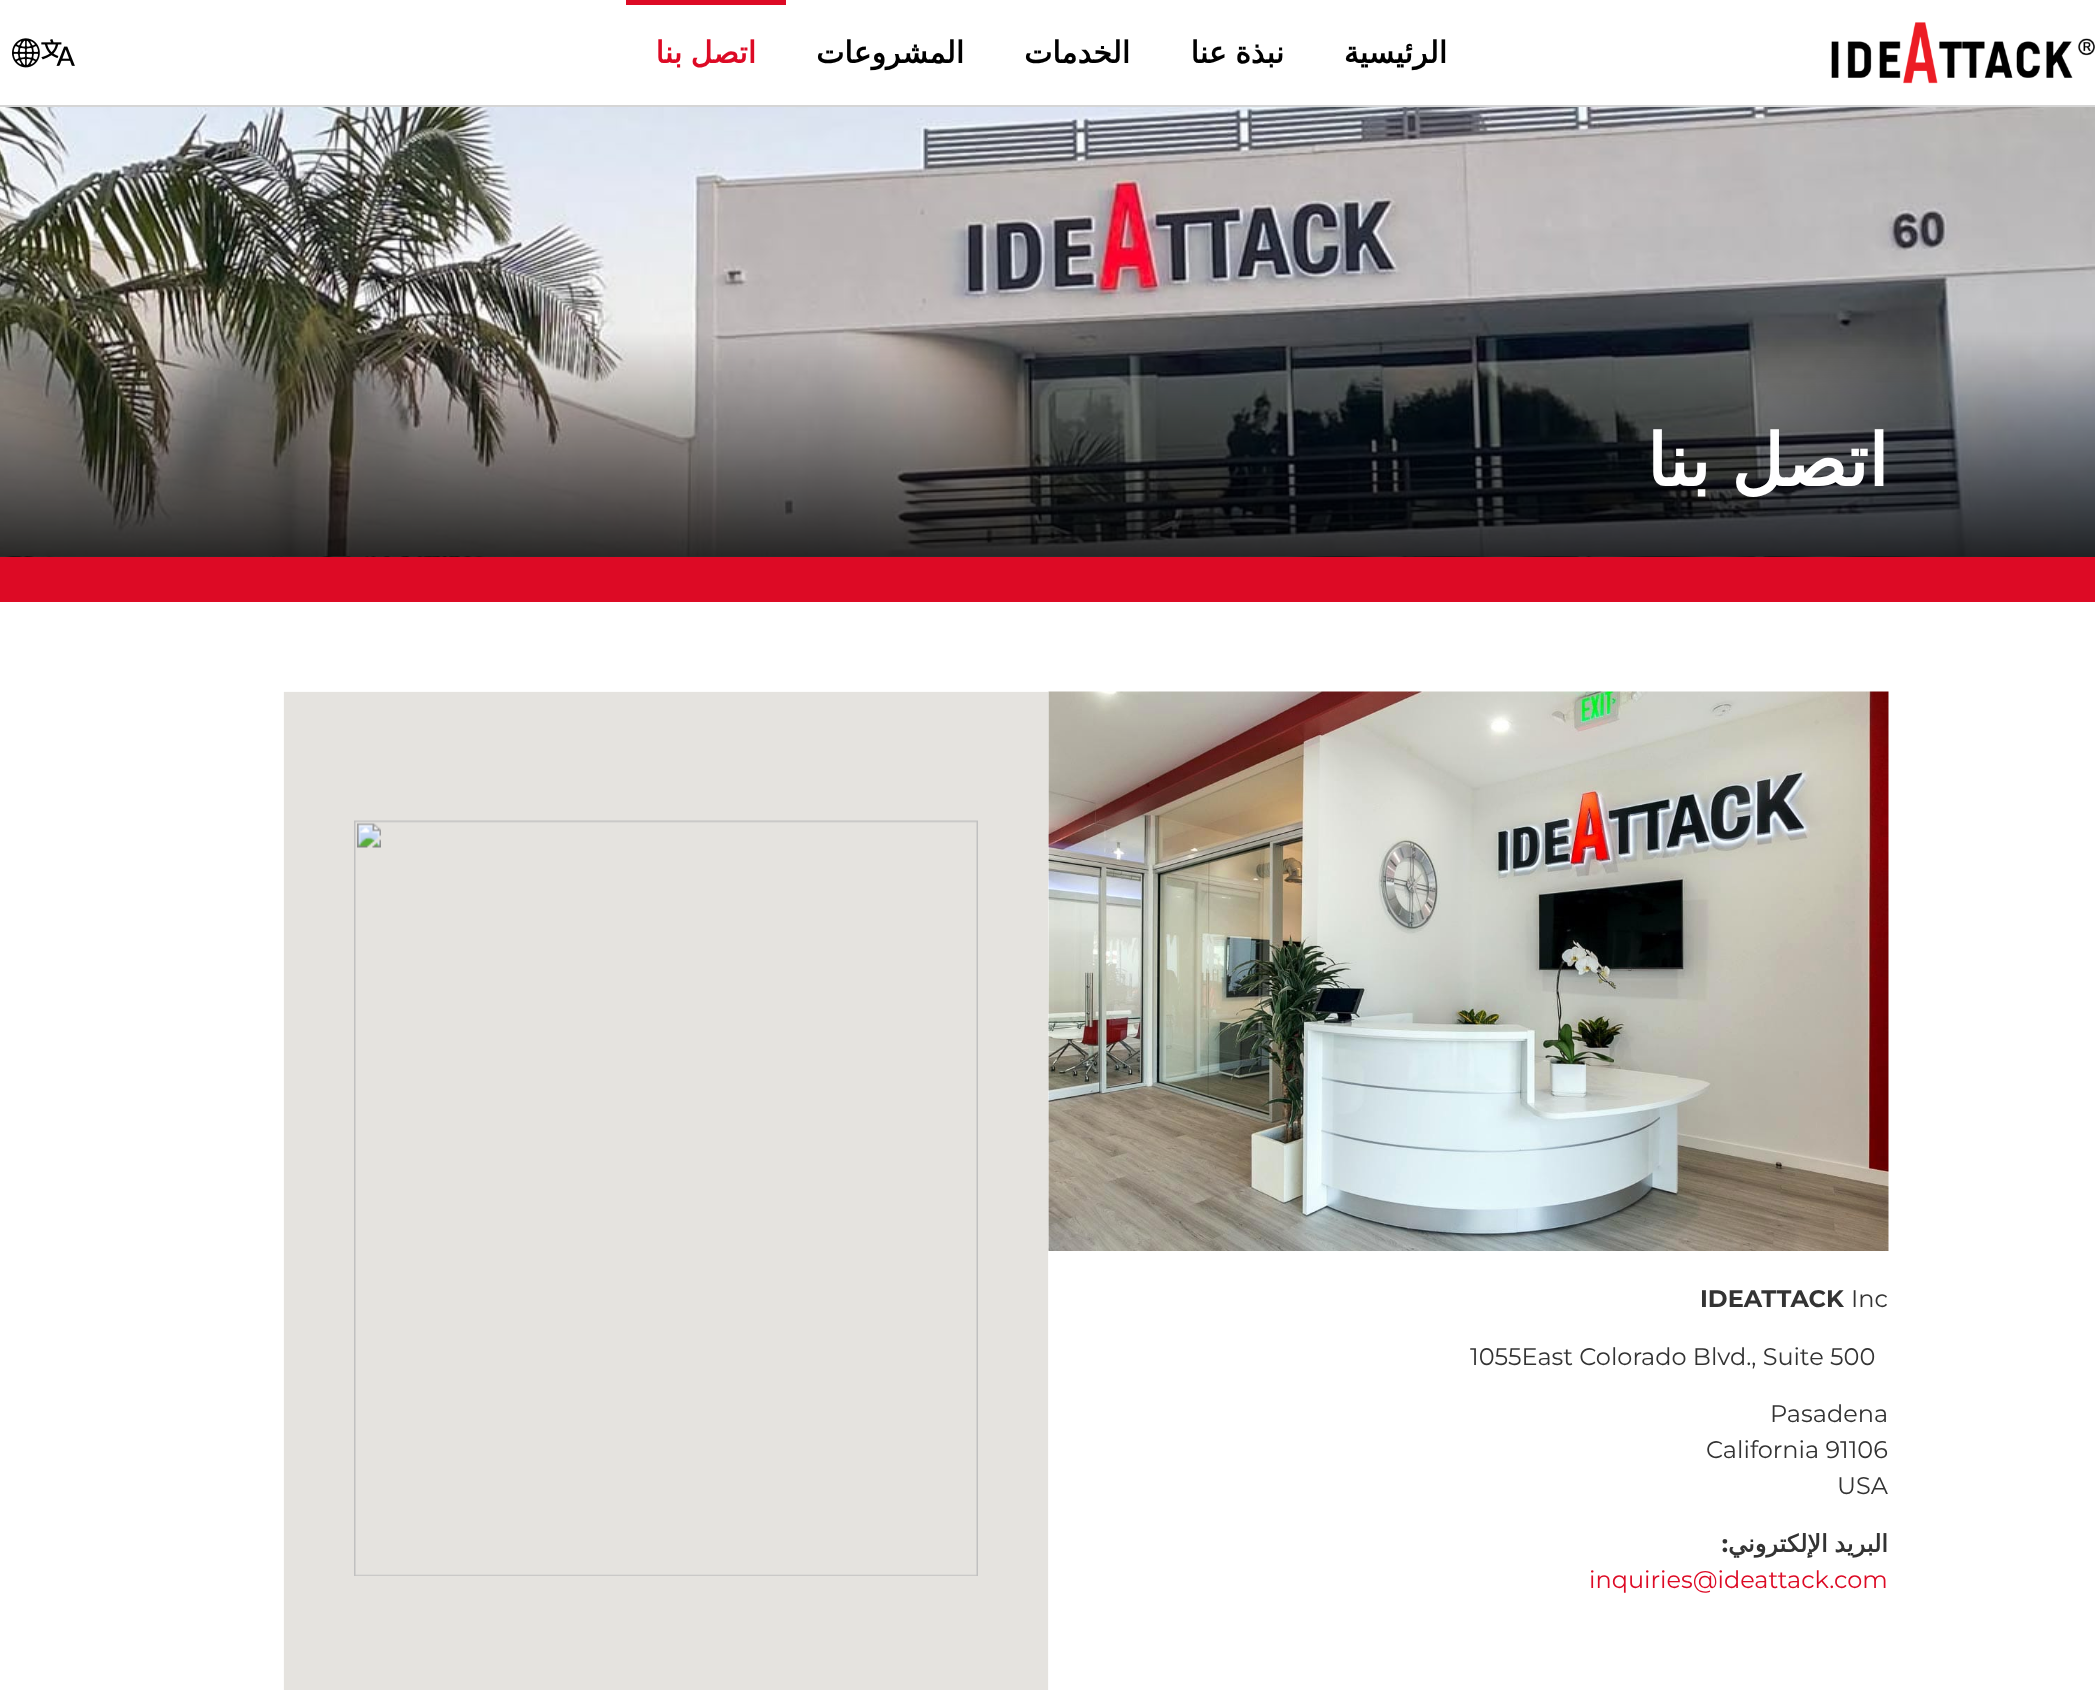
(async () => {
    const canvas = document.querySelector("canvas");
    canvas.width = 2095;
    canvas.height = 1690;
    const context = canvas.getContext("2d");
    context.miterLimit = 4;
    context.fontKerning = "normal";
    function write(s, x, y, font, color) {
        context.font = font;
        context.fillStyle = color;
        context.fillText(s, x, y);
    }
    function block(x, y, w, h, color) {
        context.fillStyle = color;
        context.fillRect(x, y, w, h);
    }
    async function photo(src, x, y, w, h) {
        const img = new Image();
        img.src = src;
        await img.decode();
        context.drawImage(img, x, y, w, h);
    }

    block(0, 0, 2095, 1690, "rgb(255, 255, 255)");
    block(0, 105, 2095, 2, "rgb(213, 213, 213)");
    await photo("media/1.png", 12, 38, 63, 30);
    block(626, 0, 160, 5, "rgb(221, 10, 37)");
    context.wordSpacing = "-1px";
    context.direction = "rtl";
    write("اتصل بنا", 756, 63, "bold 30px DejaVu Sans", "rgb(221, 10, 37)");
    context.wordSpacing = "0px";
    write("المشروعات", 964, 63, "bold 30px DejaVu Sans", "rgb(0, 0, 0)");
    write("الخدمات", 1130, 63, "bold 30px DejaVu Sans", "rgb(0, 0, 0)");
    context.wordSpacing = "-1px";
    write("نبذة عنا", 1284, 63, "bold 30px DejaVu Sans", "rgb(0, 0, 0)");
    context.wordSpacing = "0px";
    write("الرئيسية", 1447, 63, "bold 30px DejaVu Sans", "rgb(0, 0, 0)");
    await photo("media/2.png", 1831, 22, 264, 62);
    await photo("media/3.png", 0, 107, 2095, 450);
    block(0, 557, 2095, 45, "rgb(221, 10, 37)");
    context.wordSpacing = "-2px";
    write("اتصل بنا", 1888, 486, "bold 72px DejaVu Sans", "rgb(255, 255, 255)");
    await photo("media/5.png", 1048, 691, 841, 560);
    await photo("media/4.png", 283, 691, 766, 999);
    context.wordSpacing = "0px";
    context.direction = "ltr";
    write("IDEATTACK", 1700, 1307, "bold 24px Montserrat", "rgb(51, 51, 51)");
    write("Inc", 1851, 1307, "24px Montserrat", "rgb(51, 51, 51)");
    write("1055East Colorado Blvd., Suite 500", 1470, 1365, "24px Montserrat", "rgb(51, 51, 51)");
    write("Pasadena", 1770, 1422, "24px Montserrat", "rgb(51, 51, 51)");
    write("California 91106", 1706, 1458, "24px Montserrat", "rgb(51, 51, 51)");
    write("USA", 1837, 1494, "24px Montserrat", "rgb(51, 51, 51)");
    context.direction = "rtl";
    write(":", 1728, 1552, "bold 24px Montserrat", "rgb(51, 51, 51)");
    context.wordSpacing = "-1px";
    write("البريد الإلكتروني", 1888, 1552, "bold 24px DejaVu Sans", "rgb(51, 51, 51)");
    context.wordSpacing = "0px";
    context.direction = "ltr";
    write("inquiries@ideattack.com", 1589, 1588, "24px Montserrat", "rgb(221, 10, 37)");
})();
